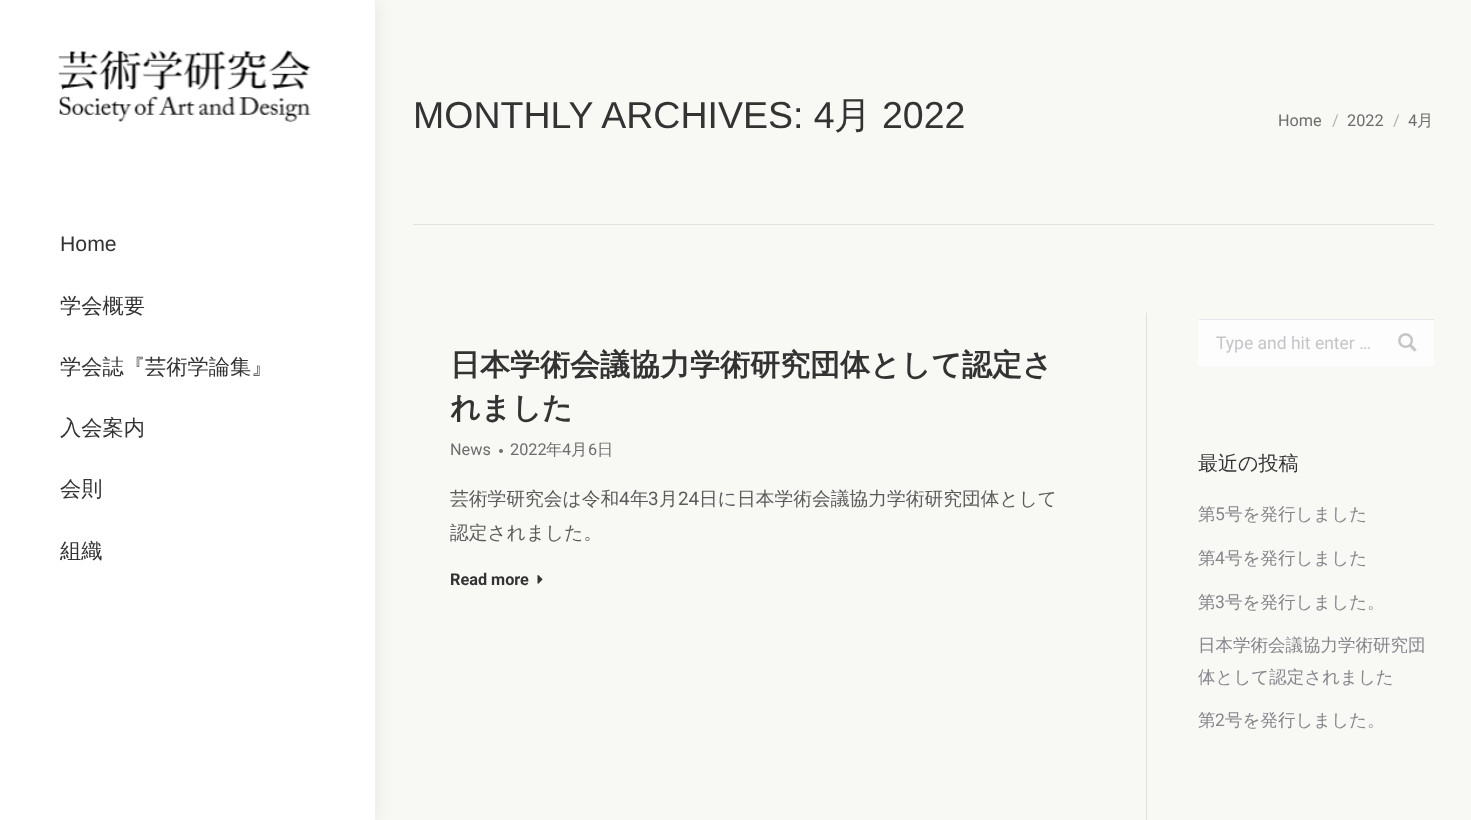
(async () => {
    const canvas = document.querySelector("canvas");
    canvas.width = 1471;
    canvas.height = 820;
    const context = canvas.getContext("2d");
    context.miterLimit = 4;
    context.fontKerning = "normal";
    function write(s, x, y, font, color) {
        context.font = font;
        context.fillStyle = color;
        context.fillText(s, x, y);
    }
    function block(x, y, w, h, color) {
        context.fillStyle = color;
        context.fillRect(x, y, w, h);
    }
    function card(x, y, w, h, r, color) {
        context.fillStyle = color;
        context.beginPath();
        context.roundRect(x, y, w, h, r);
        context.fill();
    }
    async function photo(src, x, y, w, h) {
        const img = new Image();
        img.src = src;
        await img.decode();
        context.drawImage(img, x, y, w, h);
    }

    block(0, 0, 1471, 820, "rgb(248, 248, 245)");
    write("MONTHLY ARCHIVES: 4", 413, 128, "37.5px Liberation Sans", "rgb(51, 51, 51)");
    write("月", 834, 128, "500 37.5px WenQuanYi Zen Hei", "rgb(51, 51, 51)");
    write("2022", 882, 128, "37.5px Liberation Sans", "rgb(51, 51, 51)");
    write("Home", 1278, 126, "16.25px Roboto", "rgb(109, 109, 109)");
    write("/", 1332, 126, "16.25px Roboto", "rgb(179, 179, 177)");
    write("2022", 1347, 126, "16.25px Roboto", "rgb(109, 109, 109)");
    write("/", 1393, 126, "16.25px Roboto", "rgb(179, 179, 177)");
    write("4", 1408, 126, "16.25px Roboto", "rgb(109, 109, 109)");
    write("月", 1417, 126, "500 16.25px WenQuanYi Zen Hei", "rgb(109, 109, 109)");
    block(413, 224, 1021, 1, "rgb(226, 226, 224)");
    context.fillStyle = "rgba(0, 0, 0, 0.07)";
    context.filter = "blur(9.5px)";
    context.beginPath();
    context.rect(-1, -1, 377, 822);
    context.fill();
    context.filter = "none";
    block(0, 0, 375, 820, "rgb(255, 255, 255)");
    await photo("media/1.png", 58, 50, 253, 72);
    write("Home", 60, 251, "21.25px Liberation Sans", "rgb(51, 51, 51)");
    write("学会概要", 60, 313, "500 21.25px WenQuanYi Zen Hei", "rgb(51, 51, 51)");
    write("学会誌『芸術学論集』", 60, 374, "500 21.25px WenQuanYi Zen Hei", "rgb(51, 51, 51)");
    write("入会案内", 60, 435, "500 21.25px WenQuanYi Zen Hei", "rgb(51, 51, 51)");
    write("会則", 60, 496, "500 21.25px WenQuanYi Zen Hei", "rgb(51, 51, 51)");
    write("組織", 60, 558, "500 21.25px WenQuanYi Zen Hei", "rgb(51, 51, 51)");
    write("日本学術会議協力学術研究団体として認定さ", 450, 375, "bold 30px WenQuanYi Zen Hei", "rgb(51, 51, 51)");
    write("れました", 450, 418, "bold 30px WenQuanYi Zen Hei", "rgb(51, 51, 51)");
    write("News", 450, 455, "16.25px Roboto", "rgb(109, 109, 109)");
    context.beginPath();
    context.arc(501, 451, 2, 0, Math.PI * 2);
    context.fill();
    write("2022", 510, 455, "16.25px Roboto", "rgb(109, 109, 109)");
    write("年", 546, 455, "500 16.25px WenQuanYi Zen Hei", "rgb(109, 109, 109)");
    write("4", 562, 455, "16.25px Roboto", "rgb(109, 109, 109)");
    write("月", 571, 455, "500 16.25px WenQuanYi Zen Hei", "rgb(109, 109, 109)");
    write("6", 588, 455, "16.25px Roboto", "rgb(109, 109, 109)");
    write("日", 597, 455, "500 16.25px WenQuanYi Zen Hei", "rgb(109, 109, 109)");
    write("芸術学研究会は令和", 450, 505, "500 18.75px WenQuanYi Zen Hei", "rgb(91, 91, 91)");
    write("4", 619, 505, "18.75px Roboto", "rgb(91, 91, 91)");
    write("年", 630, 505, "500 18.75px WenQuanYi Zen Hei", "rgb(91, 91, 91)");
    write("3", 648, 505, "18.75px Roboto", "rgb(91, 91, 91)");
    write("月", 659, 505, "500 18.75px WenQuanYi Zen Hei", "rgb(91, 91, 91)");
    write("24", 678, 505, "18.75px Roboto", "rgb(91, 91, 91)");
    write("日に日本学術会議協力学術研究団体として", 699, 505, "500 18.75px WenQuanYi Zen Hei", "rgb(91, 91, 91)");
    write("認定されました。", 450, 539, "500 18.75px WenQuanYi Zen Hei", "rgb(91, 91, 91)");
    write("Read more", 450, 585, "bold 16.25px Roboto", "rgb(51, 51, 51)");
    await photo("media/2.png", 537, 575, 6, 9);
    block(1146, 313, 1, 507, "rgb(224, 224, 222)");
    card(1198, 319, 236, 47, 1, "rgb(253, 253, 253)");
    block(1199, 319, 235, 1, "rgb(229, 229, 229)");
    write("Type and hit enter …", 1216, 349, "17.5px Roboto", "rgb(196, 197, 201)");
    await photo("media/3.png", 1398, 333, 19, 19);
    write("最近の投稿", 1198, 470, "500 20px WenQuanYi Zen Hei", "rgb(51, 51, 51)");
    write("第", 1198, 520, "500 17.5px WenQuanYi Zen Hei", "rgb(133, 134, 140)");
    write("5", 1215, 520, "17.5px Roboto", "rgb(133, 134, 140)");
    write("号を発行しました", 1225, 520, "500 17.5px WenQuanYi Zen Hei", "rgb(133, 134, 140)");
    write("第", 1198, 564, "500 17.5px WenQuanYi Zen Hei", "rgb(133, 134, 140)");
    write("4", 1215, 564, "17.5px Roboto", "rgb(133, 134, 140)");
    write("号を発行しました", 1225, 564, "500 17.5px WenQuanYi Zen Hei", "rgb(133, 134, 140)");
    write("第", 1198, 608, "500 17.5px WenQuanYi Zen Hei", "rgb(133, 134, 140)");
    write("3", 1215, 608, "17.5px Roboto", "rgb(133, 134, 140)");
    write("号を発行しました。", 1225, 608, "500 17.5px WenQuanYi Zen Hei", "rgb(133, 134, 140)");
    write("日本学術会議協力学術研究団", 1198, 651, "500 17.5px WenQuanYi Zen Hei", "rgb(133, 134, 140)");
    write("体として認定されました", 1198, 683, "500 17.5px WenQuanYi Zen Hei", "rgb(133, 134, 140)");
    write("第", 1198, 726, "500 17.5px WenQuanYi Zen Hei", "rgb(133, 134, 140)");
    write("2", 1215, 726, "17.5px Roboto", "rgb(133, 134, 140)");
    write("号を発行しました。", 1225, 726, "500 17.5px WenQuanYi Zen Hei", "rgb(133, 134, 140)");
})();
